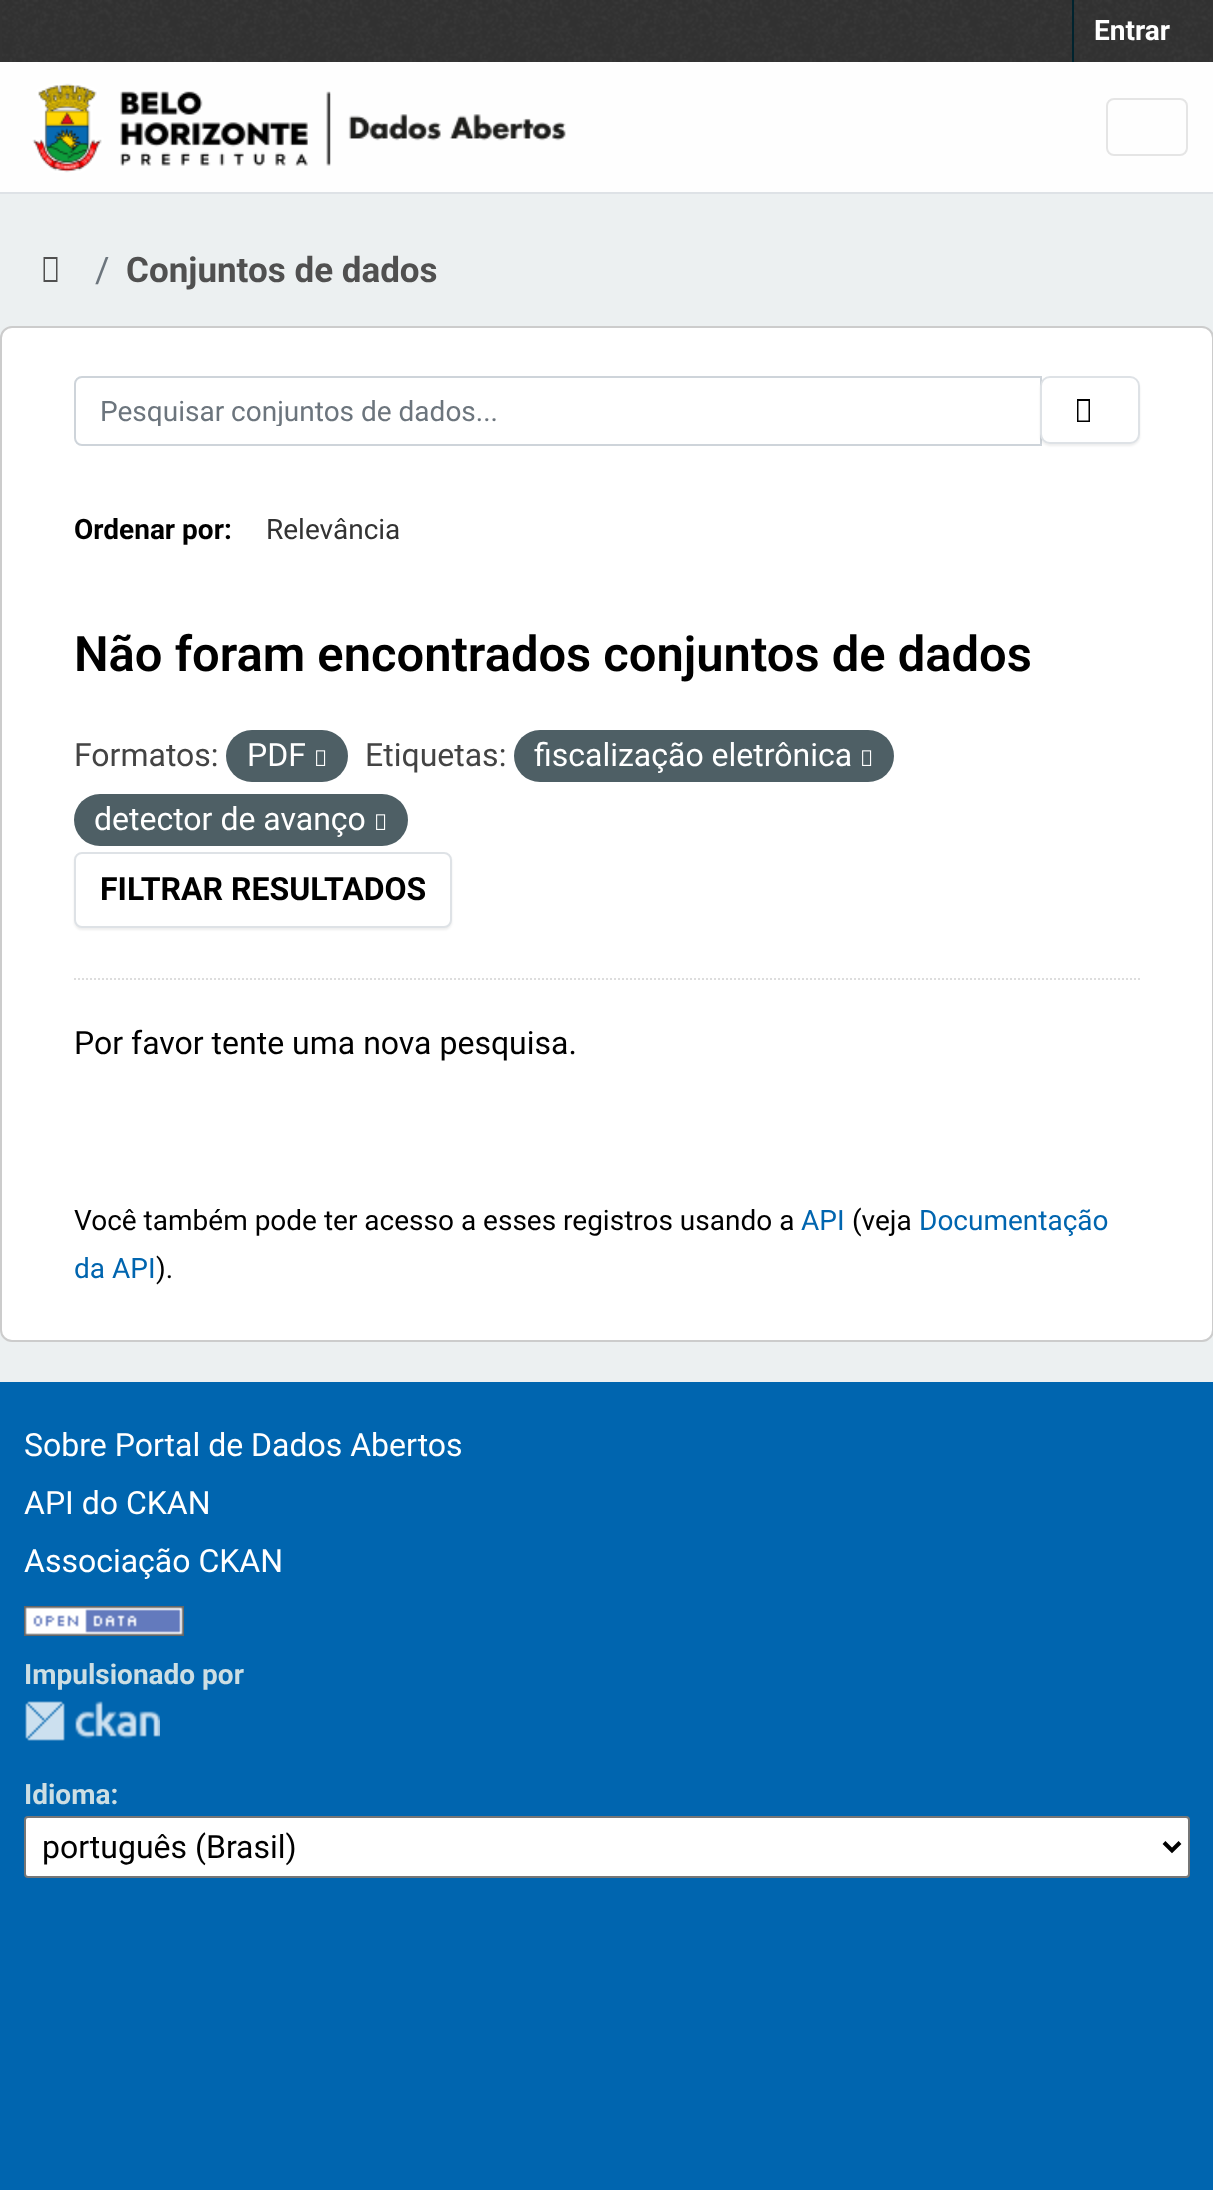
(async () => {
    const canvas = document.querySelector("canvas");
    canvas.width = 1213;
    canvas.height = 2190;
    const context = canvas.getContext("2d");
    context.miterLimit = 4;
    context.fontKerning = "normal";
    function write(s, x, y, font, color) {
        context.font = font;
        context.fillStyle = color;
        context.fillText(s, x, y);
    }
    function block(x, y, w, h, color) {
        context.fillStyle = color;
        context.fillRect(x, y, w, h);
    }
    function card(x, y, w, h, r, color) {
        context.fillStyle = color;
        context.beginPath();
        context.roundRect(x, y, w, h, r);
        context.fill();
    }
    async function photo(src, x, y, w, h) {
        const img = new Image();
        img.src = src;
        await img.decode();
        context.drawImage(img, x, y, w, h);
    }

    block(0, 0, 1213, 2190, "rgb(0, 101, 175)");
    block(0, 194, 1213, 1188, "rgb(236, 240, 241)");
    block(0, 0, 1213, 62, "rgb(51, 51, 51)");
    await photo("media/1.png", 2, 0, 1210, 62);
    block(1072, 0, 2, 62, "rgb(0, 35, 46)");
    write("Entrar", 1094, 40, "bold 28px Roboto", "rgb(255, 255, 255)");
    block(0, 62, 1213, 130, "rgb(254, 254, 254)");
    block(0, 192, 1213, 2, "rgb(222, 226, 230)");
    await photo("media/2.png", 32, 83, 534, 90);
    context.beginPath();
    context.roundRect(1107, 99, 80, 56, 7);
    context.strokeStyle = "rgb(229, 229, 229)";
    context.lineWidth = 2;
    context.stroke();
    context.fillStyle = "rgb(80, 80, 80)";
    context.beginPath();
    context.moveTo(43.5, 282);
    context.lineTo(43.5, 257);
    context.lineTo(57.5, 257);
    context.lineTo(57.5, 282);
    context.closePath();
    context.moveTo(45, 280);
    context.lineTo(56, 280);
    context.lineTo(56, 259);
    context.lineTo(45, 259);
    context.closePath();
    context.fill();
    write("/", 95, 282, "35px Roboto", "rgb(108, 117, 125)");
    write("Conjuntos de dados", 126, 282, "bold 35px Roboto", "rgb(80, 80, 80)");
    context.fillStyle = "rgb(255, 255, 255)";
    context.beginPath();
    context.roundRect(1, 327, 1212, 1014, 11);
    context.fill();
    context.strokeStyle = "rgb(204, 204, 204)";
    context.stroke();
    context.beginPath();
    context.moveTo(74, 979);
    context.lineTo(1140, 979);
    context.strokeStyle = "rgb(221, 221, 221)";
    context.setLineDash([2, 2]);
    context.stroke();
    context.beginPath();
    context.roundRect(75, 377, 966, 68, [7, 0, 0, 7]);
    context.strokeStyle = "rgb(206, 212, 218)";
    context.setLineDash([]);
    context.stroke();
    context.save();
    context.beginPath();
    context.rect(100, 394, 916, 32);
    context.clip();
    write("Pesquisar conjuntos de dados...", 100, 421, "28px Roboto", "rgb(108, 117, 125)");
    context.restore();
    context.fillStyle = "rgba(0, 0, 0, 0.07)";
    context.filter = "blur(1px)";
    context.beginPath();
    context.roundRect(1040, 378, 100, 68, 10);
    context.fill();
    context.filter = "none";
    context.fillStyle = "rgb(255, 255, 255)";
    context.beginPath();
    context.roundRect(1041, 377, 98, 66, 9);
    context.fill();
    context.strokeStyle = "rgb(222, 226, 230)";
    context.stroke();
    context.fillStyle = "rgb(0, 0, 0)";
    context.beginPath();
    context.moveTo(1077, 422);
    context.lineTo(1077, 399);
    context.lineTo(1090, 399);
    context.lineTo(1090, 422);
    context.closePath();
    context.moveTo(1078.5, 420.5);
    context.lineTo(1088.5, 420.5);
    context.lineTo(1088.5, 401);
    context.lineTo(1078.5, 401);
    context.closePath();
    context.fill();
    write("Ordenar por:", 74, 539, "bold 28px Roboto", "rgb(0, 0, 0)");
    write("Relevância", 266, 539, "28px Roboto", "rgb(51, 51, 51)");
    write("Não foram encontrados conjuntos de dados", 74, 671, "600 48.9px Roboto", "rgb(0, 0, 0)");
    write("Formatos:", 74, 766, "32px Roboto", "rgb(68, 68, 68)");
    card(226, 730, 122, 52, 26, "rgb(78, 95, 101)");
    write("PDF", 247, 766, "32px Roboto", "rgb(255, 255, 255)");
    await photo("media/3.png", 316, 750, 10, 16);
    write("Etiquetas:", 365, 766, "32px Roboto", "rgb(68, 68, 68)");
    card(514, 730, 380, 52, 26, "rgb(78, 95, 101)");
    write("fiscalização eletrônica", 534, 766, "32px Roboto", "rgb(255, 255, 255)");
    await photo("media/3.png", 862, 750, 10, 16);
    card(74, 794, 334, 52, 26, "rgb(78, 95, 101)");
    write("detector de avanço", 94, 830, "32px Roboto", "rgb(255, 255, 255)");
    await photo("media/3.png", 376, 814, 10, 16);
    context.fillStyle = "rgba(0, 0, 0, 0.07)";
    context.filter = "blur(1px)";
    context.beginPath();
    context.roundRect(74, 854, 378, 76, 8);
    context.fill();
    context.filter = "none";
    context.fillStyle = "rgb(255, 255, 255)";
    context.beginPath();
    context.roundRect(75, 853, 376, 74, 7);
    context.fill();
    context.stroke();
    write("FILTRAR RESULTADOS", 100, 900, "bold 32px Roboto", "rgb(0, 0, 0)");
    write("Por favor tente uma nova pesquisa.", 74, 1054, "32px Roboto", "rgb(0, 0, 0)");
    write("Você também pode ter acesso a esses registros usando a", 74, 1230, "28px Roboto", "rgb(0, 0, 0)");
    write("API", 801, 1230, "28px Roboto", "rgb(0, 101, 175)");
    write("(veja", 852, 1230, "28px Roboto", "rgb(0, 0, 0)");
    write("Documentação", 919, 1230, "28px Roboto", "rgb(0, 101, 175)");
    write("da API", 74, 1278, "28px Roboto", "rgb(0, 101, 175)");
    write(").", 156, 1278, "28px Roboto", "rgb(0, 0, 0)");
    write("Sobre Portal de Dados Abertos", 24, 1456, "32px Roboto", "rgb(255, 255, 255)");
    write("API do CKAN", 24, 1514, "32px Roboto", "rgb(255, 255, 255)");
    write("Associação CKAN", 24, 1572, "32px Roboto", "rgb(255, 255, 255)");
    await photo("media/4.png", 24, 1606, 160, 30);
    write("Impulsionado por", 24, 1684, "bold 28px Roboto", "rgb(204, 222, 227)");
    await photo("media/5.png", 25, 1701, 135, 40);
    write("Idioma:", 24, 1804, "bold 28px Roboto", "rgb(204, 222, 227)");
    context.fillStyle = "rgb(255, 255, 255)";
    context.beginPath();
    context.roundRect(25, 1817, 1164, 60, 3);
    context.fill();
    context.strokeStyle = "rgb(118, 118, 118)";
    context.stroke();
    context.beginPath();
    context.moveTo(1164, 1842.5);
    context.lineTo(1172, 1850.5);
    context.lineTo(1180, 1842.5);
    context.strokeStyle = "rgb(0, 0, 0)";
    context.lineWidth = 4;
    context.stroke();
    write("português (Brasil)", 42, 1858, "32px Roboto", "rgb(0, 0, 0)");
})();
